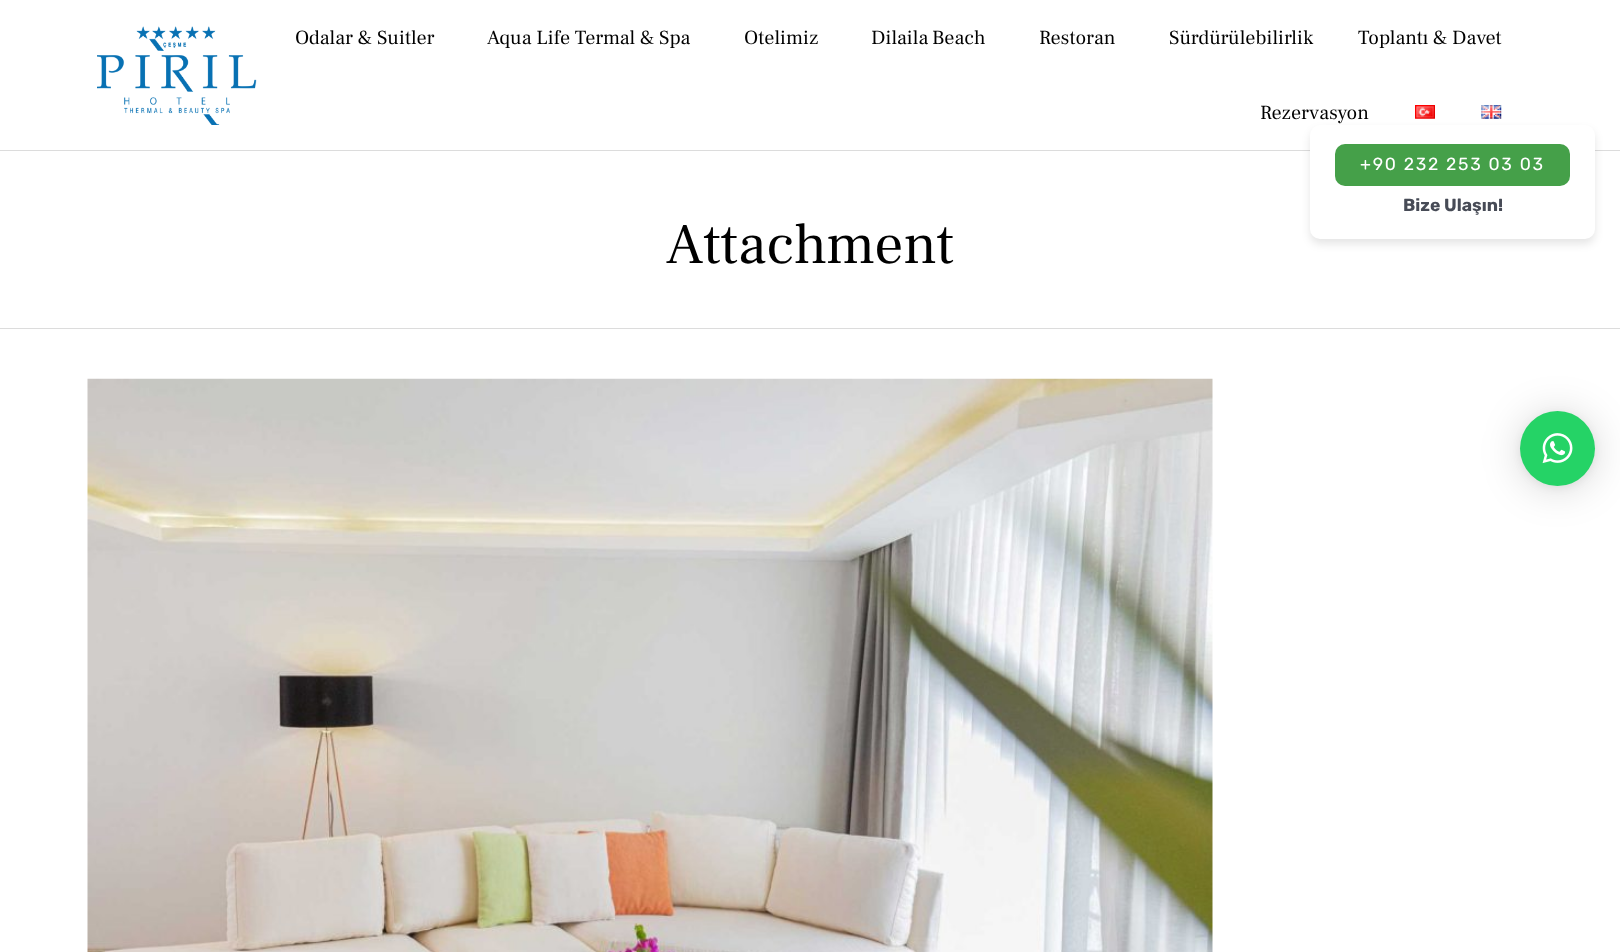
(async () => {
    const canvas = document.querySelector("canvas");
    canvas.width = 1620;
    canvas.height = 952;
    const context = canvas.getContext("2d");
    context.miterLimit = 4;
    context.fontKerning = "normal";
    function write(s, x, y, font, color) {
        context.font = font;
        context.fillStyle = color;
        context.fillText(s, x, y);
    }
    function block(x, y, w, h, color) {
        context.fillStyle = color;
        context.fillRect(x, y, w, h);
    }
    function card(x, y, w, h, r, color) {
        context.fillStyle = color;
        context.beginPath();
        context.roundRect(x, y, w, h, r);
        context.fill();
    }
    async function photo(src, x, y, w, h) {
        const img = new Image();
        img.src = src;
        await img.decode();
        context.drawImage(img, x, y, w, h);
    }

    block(0, 0, 1620, 952, "rgb(255, 255, 255)");
    await photo("media/1.png", 97, 26, 160, 99);
    write("Odalar & Suitler", 295, 44, "20px Frank Ruhl Libre", "rgb(0, 0, 0)");
    write("Aqua Life Termal & Spa", 487, 44, "20px Frank Ruhl Libre", "rgb(0, 0, 0)");
    write("Otelimiz", 744, 44, "20px Frank Ruhl Libre", "rgb(0, 0, 0)");
    context.wordSpacing = "-1px";
    write("Dilaila Beach", 871, 44, "20px Frank Ruhl Libre", "rgb(0, 0, 0)");
    context.wordSpacing = "0px";
    write("Restoran", 1039, 44, "20px Frank Ruhl Libre", "rgb(0, 0, 0)");
    write("Sürdürülebilirlik", 1169, 44, "20px Frank Ruhl Libre", "rgb(0, 0, 0)");
    write("Toplantı & Davet", 1358, 44, "20px Frank Ruhl Libre", "rgb(0, 0, 0)");
    write("Rezervasyon", 1260, 119, "20px Frank Ruhl Libre", "rgb(0, 0, 0)");
    await photo("media/2.png", 1415, 105, 20, 14);
    await photo("media/3.png", 1481, 105, 21, 14);
    block(0, 150, 1620, 1, "rgb(220, 220, 220)");
    context.fillStyle = "rgba(0, 0, 0, 0.1)";
    context.filter = "blur(4px)";
    context.beginPath();
    context.roundRect(1310, 130, 285, 114, 10);
    context.fill();
    context.filter = "none";
    card(1310, 125, 285, 114, 10, "rgb(255, 255, 255)");
    card(1335, 144, 235, 42, 10, "rgb(69, 160, 73)");
    context.letterSpacing = "1.75px";
    write("+90 232 253 03 03", 1360, 170, "17.5px Rubik", "rgb(255, 255, 255)");
    context.letterSpacing = "0px";
    write("Bize Ulaşın!", 1403, 211, "bold 17.5px Rubik", "rgb(71, 75, 86)");
    block(0, 328, 1620, 1, "rgb(220, 220, 220)");
    write("Attachment", 666, 263, "57.5px Frank Ruhl Libre", "rgb(0, 0, 0)");
    await photo("media/4.png", 87, 378, 1126, 574);
    context.fillStyle = "rgba(0, 0, 0, 0.16)";
    context.filter = "blur(20px)";
    context.beginPath();
    context.roundRect(1520, 414, 75, 75, 37.5);
    context.fill();
    context.filter = "none";
    context.fillStyle = "rgba(0, 0, 0, 0.06)";
    context.filter = "blur(4px)";
    context.beginPath();
    context.roundRect(1520, 413, 75, 75, 37.5);
    context.fill();
    context.filter = "none";
    context.fillStyle = "rgb(37, 211, 102)";
    context.beginPath();
    context.arc(1557.5, 448.5, 37.5, 0, Math.PI * 2);
    context.fill();
    await photo("media/5.png", 1542, 433, 31, 31);
})();
